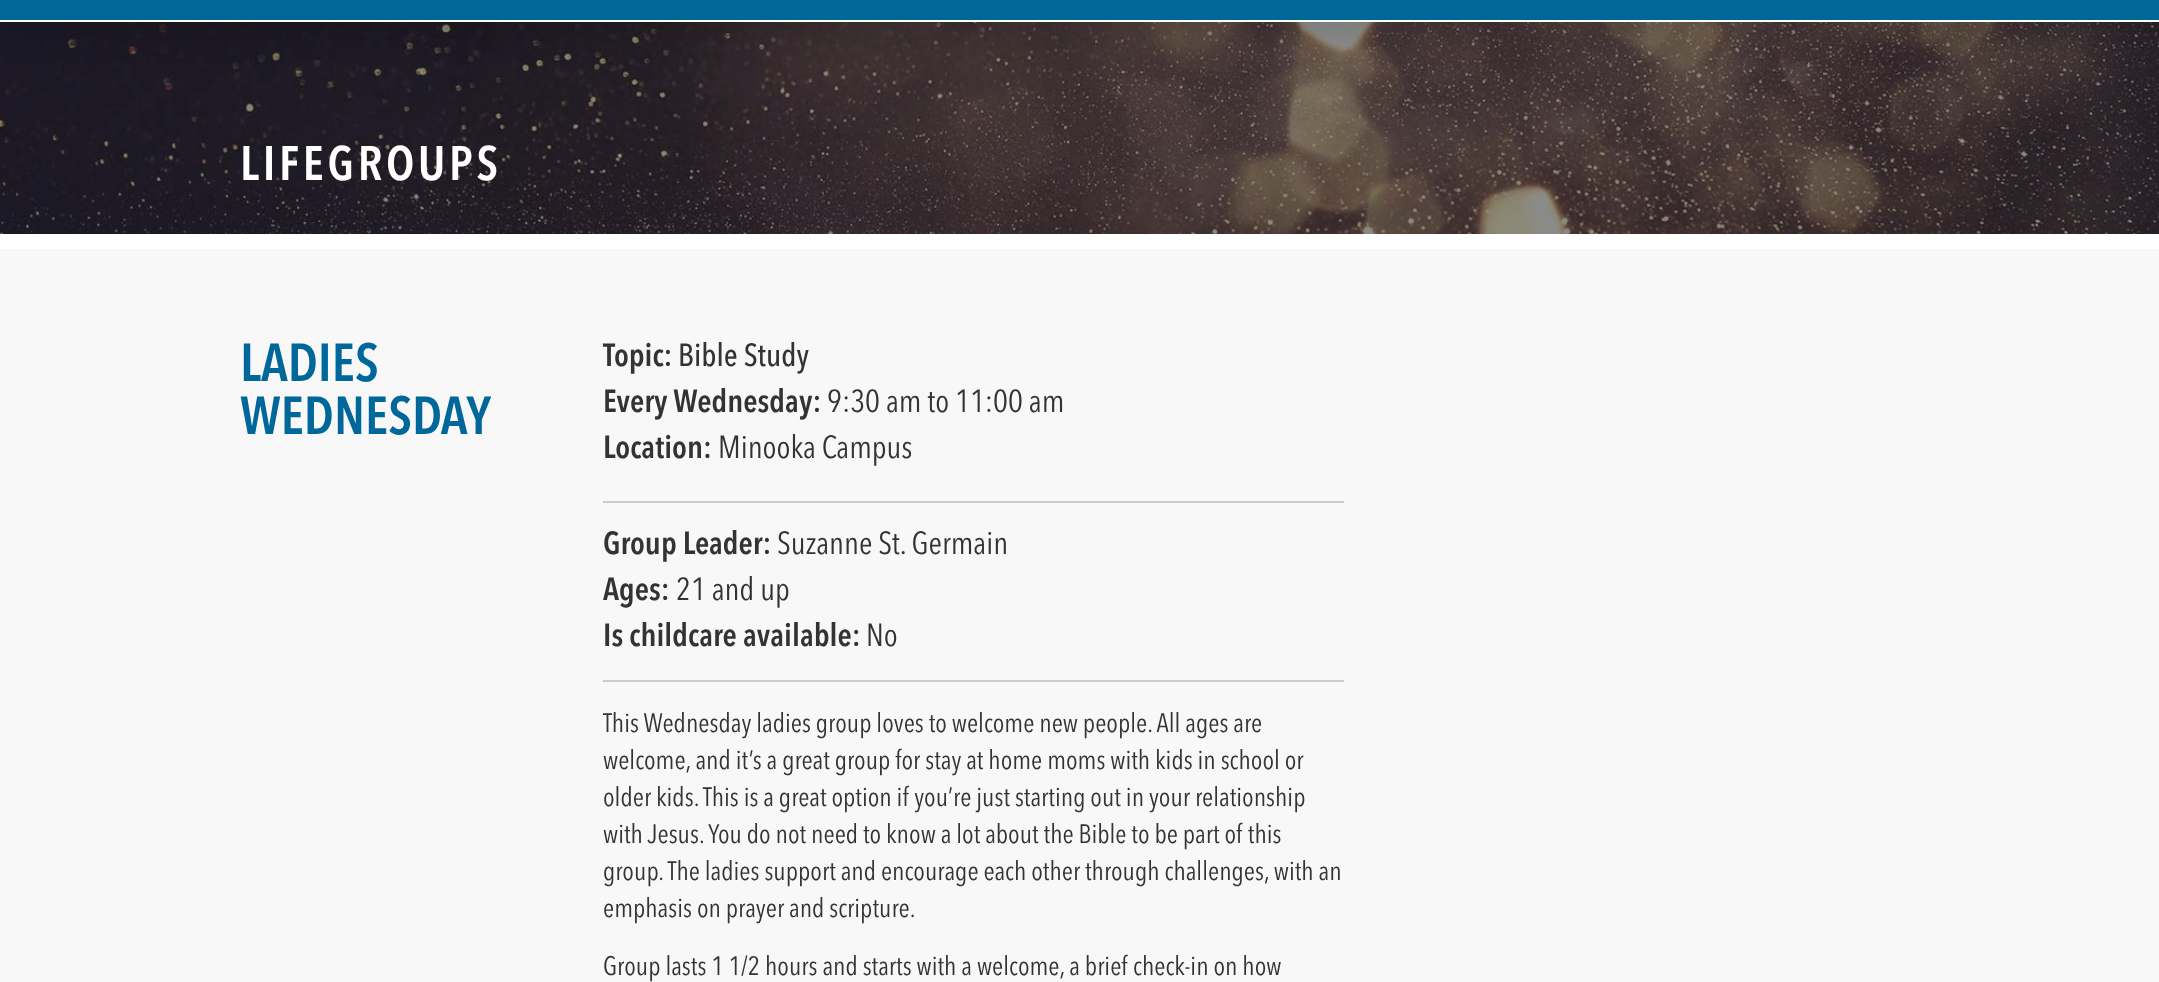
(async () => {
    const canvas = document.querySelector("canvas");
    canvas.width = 2159;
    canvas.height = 982;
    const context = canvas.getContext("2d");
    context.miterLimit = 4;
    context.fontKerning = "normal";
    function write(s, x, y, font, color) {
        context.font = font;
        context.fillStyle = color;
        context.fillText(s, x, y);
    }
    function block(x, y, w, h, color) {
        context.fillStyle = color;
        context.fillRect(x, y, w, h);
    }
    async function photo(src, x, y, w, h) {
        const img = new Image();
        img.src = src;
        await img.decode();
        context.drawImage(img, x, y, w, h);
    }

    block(0, 0, 2159, 982, "rgb(248, 248, 248)");
    await photo("media/1.png", 0, 22, 2159, 212);
    context.fillStyle = "rgba(0, 0, 0, 0.1)";
    context.filter = "blur(15px)";
    context.beginPath();
    context.rect(0, -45, 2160, 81);
    context.fill();
    context.filter = "none";
    block(0, 0, 2159, 20, "rgb(0, 103, 154)");
    block(0, 20, 2159, 2, "rgb(255, 255, 255)");
    block(0, 234, 2159, 15, "rgb(255, 255, 255)");
    context.letterSpacing = "3.75px";
    write("LIFEGROUPS", 240, 180, "600 48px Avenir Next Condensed", "rgb(255, 255, 255)");
    context.letterSpacing = "0px";
    write("LADIES", 240, 381, "600 53px Avenir Next Condensed", "rgb(0, 103, 154)");
    write("WEDNESDAY", 240, 434, "600 53px Avenir Next Condensed", "rgb(0, 103, 154)");
    write("Topic:", 603, 366, "600 31.75px Avenir Next Condensed", "rgb(51, 51, 51)");
    write("Bible Study", 678, 366, "500 31.75px Avenir Next Condensed", "rgb(51, 51, 51)");
    write("Every Wednesday:", 603, 412, "600 31.75px Avenir Next Condensed", "rgb(51, 51, 51)");
    write("9:30 am to 11:00 am", 827, 412, "31.75px Avenir Next Condensed", "rgb(51, 51, 51)");
    write("Location:", 603, 458, "600 31.75px Avenir Next Condensed", "rgb(51, 51, 51)");
    write("Minooka Campus", 718, 458, "31.75px Avenir Next Condensed", "rgb(51, 51, 51)");
    block(603, 501, 741, 2, "rgb(204, 204, 204)");
    write("Group Leader:", 603, 554, "600 31.75px Avenir Next Condensed", "rgb(51, 51, 51)");
    write("Suzanne St. Germain", 777, 554, "31.75px Avenir Next Condensed", "rgb(51, 51, 51)");
    write("Ages:", 603, 600, "600 31.75px Avenir Next Condensed", "rgb(51, 51, 51)");
    write("21 and up", 676, 600, "31.75px Avenir Next Condensed", "rgb(51, 51, 51)");
    write("Is childcare available:", 603, 646, "600 31.75px Avenir Next Condensed", "rgb(51, 51, 51)");
    write("No", 866, 646, "31.75px Avenir Next Condensed", "rgb(51, 51, 51)");
    block(603, 680, 741, 2, "rgb(204, 204, 204)");
    write("This Wednesday ladies group loves to welcome new people. All ages are", 603, 732, "26.4px Avenir Next Condensed", "rgb(51, 51, 51)");
    write("welcome, and it’s a great group for stay at home moms with kids in school or", 603, 769, "26.4px Avenir Next Condensed", "rgb(51, 51, 51)");
    write("older kids. This is a great option if you’re just starting out in your relationship", 603, 806, "26.4px Avenir Next Condensed", "rgb(51, 51, 51)");
    write("with Jesus. You do not need to know a lot about the Bible to be part of this", 603, 843, "26.4px Avenir Next Condensed", "rgb(51, 51, 51)");
    write("group. The ladies support and encourage each other through challenges, with an", 603, 880, "26.4px Avenir Next Condensed", "rgb(51, 51, 51)");
    write("emphasis on prayer and scripture.", 603, 917, "26.4px Avenir Next Condensed", "rgb(51, 51, 51)");
    write("Group lasts 1 1/2 hours and starts with a welcome, a brief check-in on how", 603, 975, "26.4px Avenir Next Condensed", "rgb(51, 51, 51)");
})();
